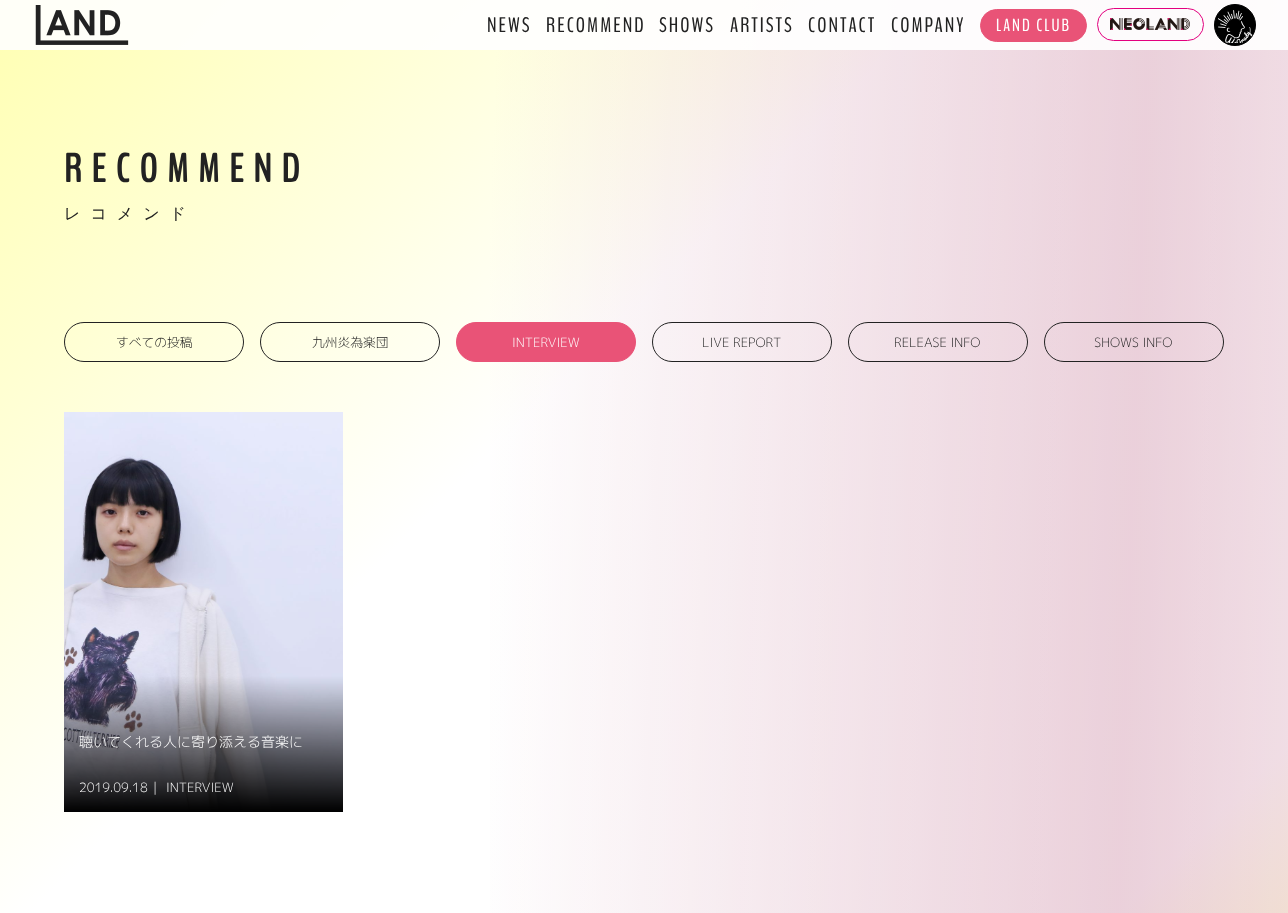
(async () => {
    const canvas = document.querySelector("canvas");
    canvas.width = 1288;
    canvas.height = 913;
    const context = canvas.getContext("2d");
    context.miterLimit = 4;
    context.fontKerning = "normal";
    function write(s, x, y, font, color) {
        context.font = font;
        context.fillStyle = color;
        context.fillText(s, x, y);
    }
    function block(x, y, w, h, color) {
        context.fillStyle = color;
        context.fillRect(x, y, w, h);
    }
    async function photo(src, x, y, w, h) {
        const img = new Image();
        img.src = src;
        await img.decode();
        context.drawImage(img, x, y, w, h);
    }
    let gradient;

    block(0, 0, 1288, 913, "rgb(255, 255, 255)");
    gradient = context.createLinearGradient(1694, 623, -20, 564);
    gradient.addColorStop(0, "rgb(255, 255, 255)");
    gradient.addColorStop(0.33, "rgb(226, 188, 203)");
    gradient.addColorStop(0.71, "rgb(255, 255, 255)");
    gradient.addColorStop(0.95, "rgb(255, 255, 255)");
    context.fillStyle = gradient;
    context.fillRect(490, 0, 798, 913);
    gradient = context.createLinearGradient(122, -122, 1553, 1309);
    gradient.addColorStop(0, "rgba(255, 255, 0, 0.3)");
    gradient.addColorStop(0.33, "rgba(255, 255, 255, 0.3)");
    gradient.addColorStop(0.71, "rgba(255, 255, 255, 0.3)");
    gradient.addColorStop(0.95, "rgba(255, 255, 0, 0.3)");
    context.fillStyle = gradient;
    context.fillRect(0, 0, 1288, 913);
    block(0, 0, 1288, 50, "rgba(255, 255, 255, 0.9)");
    await photo("media/1.png", 35, 5, 94, 40);
    context.letterSpacing = "2px";
    write("NEWS", 487, 32, "21px BenchNine", "rgb(34, 34, 34)");
    write("RECOMMEND", 546, 32, "21px BenchNine", "rgb(34, 34, 34)");
    write("SHOWS", 659, 32, "21px BenchNine", "rgb(34, 34, 34)");
    write("ARTISTS", 730, 32, "21px BenchNine", "rgb(34, 34, 34)");
    write("CONTACT", 808, 32, "21px BenchNine", "rgb(34, 34, 34)");
    write("COMPANY", 891, 32, "21px BenchNine", "rgb(34, 34, 34)");
    context.fillStyle = "rgb(233, 83, 119)";
    context.beginPath();
    context.roundRect(980.5, 9.5, 106, 32, 16);
    context.fill();
    context.strokeStyle = "rgb(233, 83, 119)";
    context.stroke();
    write("LAND CLUB", 996, 31, "17.5px BenchNine", "rgb(255, 255, 255)");
    context.beginPath();
    context.roundRect(1097.5, 8.5, 106, 32, 16);
    context.strokeStyle = "rgb(227, 0, 127)";
    context.stroke();
    await photo("media/2.png", 1110, 18, 80, 12);
    context.fillStyle = "rgb(0, 0, 0)";
    context.beginPath();
    context.arc(1235, 25, 20.5, 0, Math.PI * 2);
    context.fill();
    context.strokeStyle = "rgb(0, 0, 0)";
    context.stroke();
    await photo("media/3.png", 1218, 10, 35, 33);
    context.letterSpacing = "10px";
    write("RECOMMEND", 64, 182, "bold 40px BenchNine", "rgb(34, 34, 34)");
    write("レコメンド", 64, 219, "500 16px WenQuanYi Zen Hei", "rgb(34, 34, 34)");
    context.beginPath();
    context.roundRect(64.5, 322.5, 179, 39, 19.5);
    context.strokeStyle = "rgb(34, 34, 34)";
    context.stroke();
    context.letterSpacing = "0px";
    write("すべての投稿", 116, 347, "300 12.75px 'M PLUS 1p'", "rgb(34, 34, 34)");
    context.beginPath();
    context.roundRect(260.5, 322.5, 179, 39, 19.5);
    context.stroke();
    write("九州炎為楽団", 312, 347, "300 12.75px 'M PLUS 1p'", "rgb(34, 34, 34)");
    context.fillStyle = "rgb(233, 83, 119)";
    context.beginPath();
    context.roundRect(456.5, 322.5, 179, 39, 19.5);
    context.fill();
    context.strokeStyle = "rgb(233, 83, 119)";
    context.stroke();
    write("INTERVIEW", 512, 347, "300 12.75px 'M PLUS 1p'", "rgb(255, 255, 255)");
    context.beginPath();
    context.roundRect(652.5, 322.5, 179, 39, 19.5);
    context.strokeStyle = "rgb(34, 34, 34)";
    context.stroke();
    write("LIVE REPORT", 702, 347, "300 12.75px 'M PLUS 1p'", "rgb(34, 34, 34)");
    context.beginPath();
    context.roundRect(848.5, 322.5, 179, 39, 19.5);
    context.stroke();
    write("RELEASE INFO", 894, 347, "300 12.75px 'M PLUS 1p'", "rgb(34, 34, 34)");
    context.beginPath();
    context.roundRect(1044.5, 322.5, 179, 39, 19.5);
    context.stroke();
    write("SHOWS INFO", 1094, 347, "300 12.75px 'M PLUS 1p'", "rgb(34, 34, 34)");
    await photo("media/4.png", 64, 412, 279, 400);
    write("聴いてくれる人に寄り添える音楽に", 79, 747, "300 14px 'M PLUS 1p'", "rgb(255, 255, 255)");
    write("2019.09.18", 79, 792, "300 12.75px 'M PLUS 1p'", "rgb(255, 255, 255)");
    write("|", 153, 792, "300 12.75px 'M PLUS 1p'", "rgb(255, 255, 255)");
    write("INTERVIEW", 166, 792, "300 12.75px 'M PLUS 1p'", "rgb(255, 255, 255)");
})();
